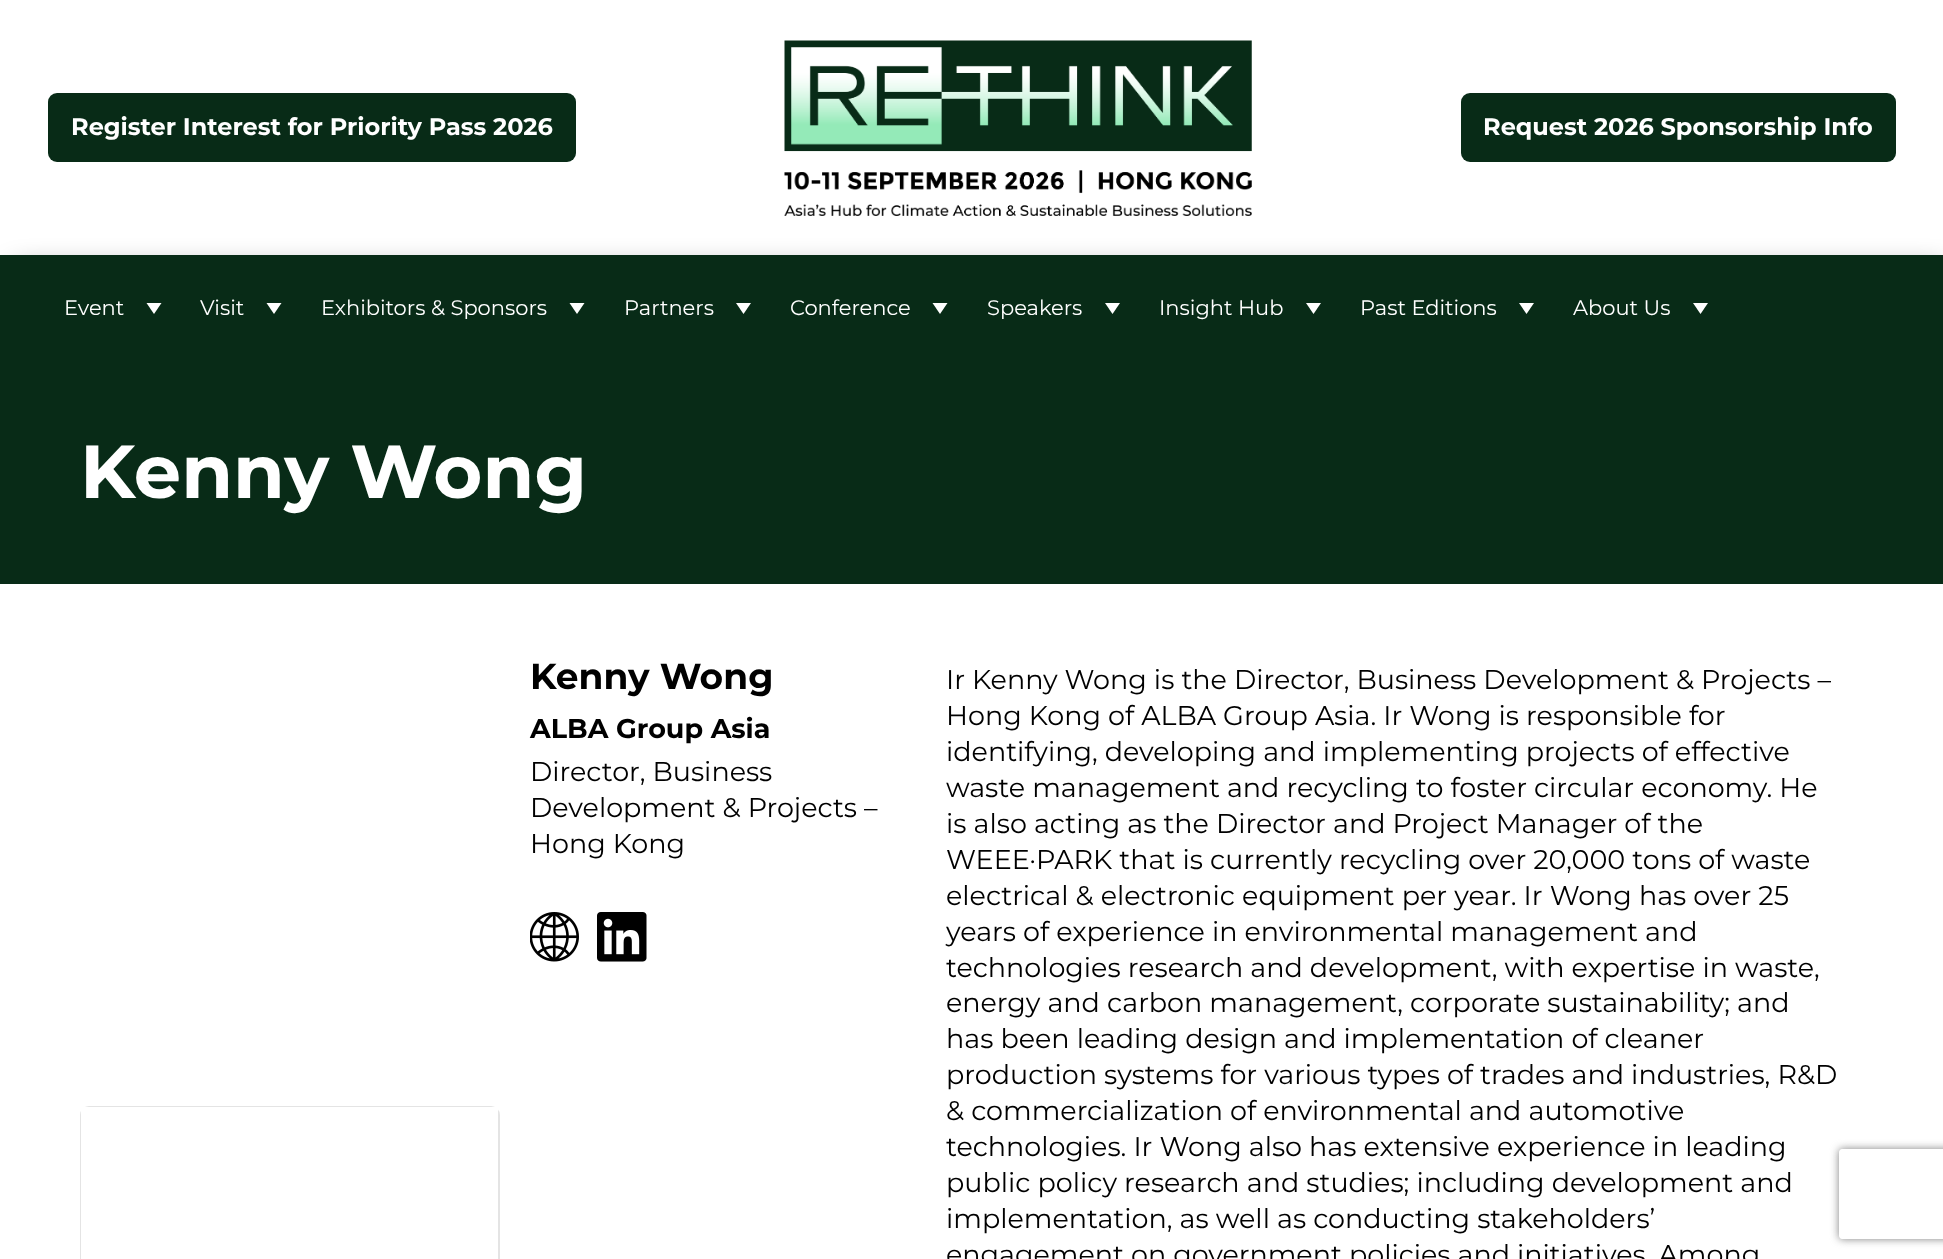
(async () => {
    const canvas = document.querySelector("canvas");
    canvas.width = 1943;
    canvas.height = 1259;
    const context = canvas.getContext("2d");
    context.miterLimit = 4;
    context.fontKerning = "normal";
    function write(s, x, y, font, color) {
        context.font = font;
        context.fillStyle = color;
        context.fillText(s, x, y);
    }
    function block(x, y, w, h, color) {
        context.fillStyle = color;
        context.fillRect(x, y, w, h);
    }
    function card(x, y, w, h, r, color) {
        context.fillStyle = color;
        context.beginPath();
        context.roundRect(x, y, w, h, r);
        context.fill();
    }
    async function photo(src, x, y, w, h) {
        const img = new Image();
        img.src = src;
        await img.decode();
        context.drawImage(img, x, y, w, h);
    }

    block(0, 0, 1943, 1259, "rgb(255, 255, 255)");
    card(48, 93, 528, 69, 9, "rgb(8, 43, 23)");
    write("Register Interest for Priority Pass 2026", 71, 135, "bold 24px Montserrat", "rgb(255, 255, 255)");
    await photo("media/1.png", 784, 40, 468, 176);
    card(1461, 93, 435, 69, 9, "rgb(8, 43, 23)");
    write("Request 2026 Sponsorship Info", 1483, 135, "bold 24px Montserrat", "rgb(255, 255, 255)");
    context.fillStyle = "rgba(0, 0, 0, 0.5)";
    context.filter = "blur(14px)";
    context.beginPath();
    context.rect(15, 270, 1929, 90);
    context.fill();
    context.filter = "none";
    block(0, 255, 1943, 329, "rgb(8, 43, 23)");
    write("Event", 64, 315, "21px Montserrat", "rgb(255, 255, 255)");
    context.beginPath();
    context.moveTo(161.5, 303);
    context.lineTo(154, 314);
    context.lineTo(146.5, 303);
    context.closePath();
    context.fill();
    write("Visit", 200, 315, "21px Montserrat", "rgb(255, 255, 255)");
    context.beginPath();
    context.moveTo(281.5, 303);
    context.lineTo(274, 314);
    context.lineTo(266.5, 303);
    context.closePath();
    context.fill();
    write("Exhibitors & Sponsors", 321, 315, "21px Montserrat", "rgb(255, 255, 255)");
    context.beginPath();
    context.moveTo(584.5, 303);
    context.lineTo(577, 314);
    context.lineTo(569.5, 303);
    context.closePath();
    context.fill();
    write("Partners", 624, 315, "21px Montserrat", "rgb(255, 255, 255)");
    context.beginPath();
    context.moveTo(751, 303);
    context.lineTo(743.5, 314);
    context.lineTo(736, 303);
    context.closePath();
    context.fill();
    write("Conference", 790, 315, "21px Montserrat", "rgb(255, 255, 255)");
    context.beginPath();
    context.moveTo(947.5, 303);
    context.lineTo(940, 314);
    context.lineTo(932.5, 303);
    context.closePath();
    context.fill();
    write("Speakers", 987, 315, "21px Montserrat", "rgb(255, 255, 255)");
    context.beginPath();
    context.moveTo(1120, 303);
    context.lineTo(1112.5, 314);
    context.lineTo(1105, 303);
    context.closePath();
    context.fill();
    write("Insight Hub", 1159, 315, "21px Montserrat", "rgb(255, 255, 255)");
    context.beginPath();
    context.moveTo(1321, 303);
    context.lineTo(1313.5, 314);
    context.lineTo(1306, 303);
    context.closePath();
    context.fill();
    write("Past Editions", 1360, 315, "21px Montserrat", "rgb(255, 255, 255)");
    context.beginPath();
    context.moveTo(1534, 303);
    context.lineTo(1526.5, 314);
    context.lineTo(1519, 303);
    context.closePath();
    context.fill();
    write("About Us", 1573, 315, "21px Montserrat", "rgb(255, 255, 255)");
    context.beginPath();
    context.moveTo(1708, 303);
    context.lineTo(1700.5, 314);
    context.lineTo(1693, 303);
    context.closePath();
    context.fill();
    write("Kenny Wong", 80, 498, "bold 75px Montserrat", "rgb(255, 255, 255)");
    context.beginPath();
    context.roundRect(81, 1107, 418, 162, 8);
    context.strokeStyle = "rgb(228, 228, 228)";
    context.lineWidth = 2;
    context.stroke();
    block(81, 1107, 417, 152, "rgb(255, 255, 255)");
    write("Kenny Wong", 530, 689, "bold 36px Montserrat", "rgb(0, 0, 0)");
    write("ALBA Group Asia", 530, 738, "bold 27px Montserrat", "rgb(0, 0, 0)");
    write("Director, Business", 530, 781, "27px Montserrat", "rgb(0, 0, 0)");
    write("Development & Projects –", 530, 817, "27px Montserrat", "rgb(0, 0, 0)");
    write("Hong Kong", 530, 853, "27px Montserrat", "rgb(0, 0, 0)");
    await photo("media/2.png", 530, 912, 49, 50);
    await photo("media/3.png", 597, 912, 50, 50);
    write("Ir Kenny Wong is the Director, Business Development & Projects –", 946, 689, "27px Montserrat", "rgb(0, 0, 0)");
    write("Hong Kong of ALBA Group Asia. Ir Wong is responsible for", 946, 725, "27px Montserrat", "rgb(0, 0, 0)");
    write("identifying, developing and implementing projects of effective", 946, 761, "27px Montserrat", "rgb(0, 0, 0)");
    write("waste management and recycling to foster circular economy. He", 946, 797, "27px Montserrat", "rgb(0, 0, 0)");
    write("is also acting as the Director and Project Manager of the", 946, 833, "27px Montserrat", "rgb(0, 0, 0)");
    write("WEEE·PARK that is currently recycling over 20,000 tons of waste", 946, 869, "27px Montserrat", "rgb(0, 0, 0)");
    write("electrical & electronic equipment per year. Ir Wong has over 25", 946, 905, "27px Montserrat", "rgb(0, 0, 0)");
    write("years of experience in environmental management and", 946, 941, "27px Montserrat", "rgb(0, 0, 0)");
    write("technologies research and development, with expertise in waste,", 946, 977, "27px Montserrat", "rgb(0, 0, 0)");
    write("energy and carbon management, corporate sustainability; and", 946, 1012, "27px Montserrat", "rgb(0, 0, 0)");
    write("has been leading design and implementation of cleaner", 946, 1048, "27px Montserrat", "rgb(0, 0, 0)");
    write("production systems for various types of trades and industries, R&D", 946, 1084, "27px Montserrat", "rgb(0, 0, 0)");
    write("& commercialization of environmental and automotive", 946, 1120, "27px Montserrat", "rgb(0, 0, 0)");
    write("technologies. Ir Wong also has extensive experience in leading", 946, 1156, "27px Montserrat", "rgb(0, 0, 0)");
    write("public policy research and studies; including development and", 946, 1192, "27px Montserrat", "rgb(0, 0, 0)");
    write("implementation, as well as conducting stakeholders’", 946, 1228, "27px Montserrat", "rgb(0, 0, 0)");
    write("engagement on government policies and initiatives. Among", 946, 1264, "27px Montserrat", "rgb(0, 0, 0)");
    context.save();
    context.beginPath();
    context.moveTo(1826, 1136);
    context.lineTo(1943, 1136);
    context.lineTo(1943, 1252);
    context.lineTo(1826, 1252);
    context.closePath();
    context.moveTo(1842, 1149);
    context.lineTo(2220, 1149);
    context.bezierCurveTo(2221.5, 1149, 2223, 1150.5, 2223, 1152);
    context.lineTo(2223, 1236);
    context.bezierCurveTo(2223, 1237.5, 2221.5, 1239, 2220, 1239);
    context.lineTo(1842, 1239);
    context.bezierCurveTo(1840.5, 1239, 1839, 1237.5, 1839, 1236);
    context.lineTo(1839, 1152);
    context.bezierCurveTo(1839, 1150.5, 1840.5, 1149, 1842, 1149);
    context.closePath();
    context.clip("evenodd");
    context.fillStyle = "rgb(128, 128, 128)";
    context.filter = "blur(4px)";
    context.beginPath();
    context.roundRect(1839, 1149, 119, 90, 3);
    context.fill();
    context.filter = "none";
    context.restore();
})();
